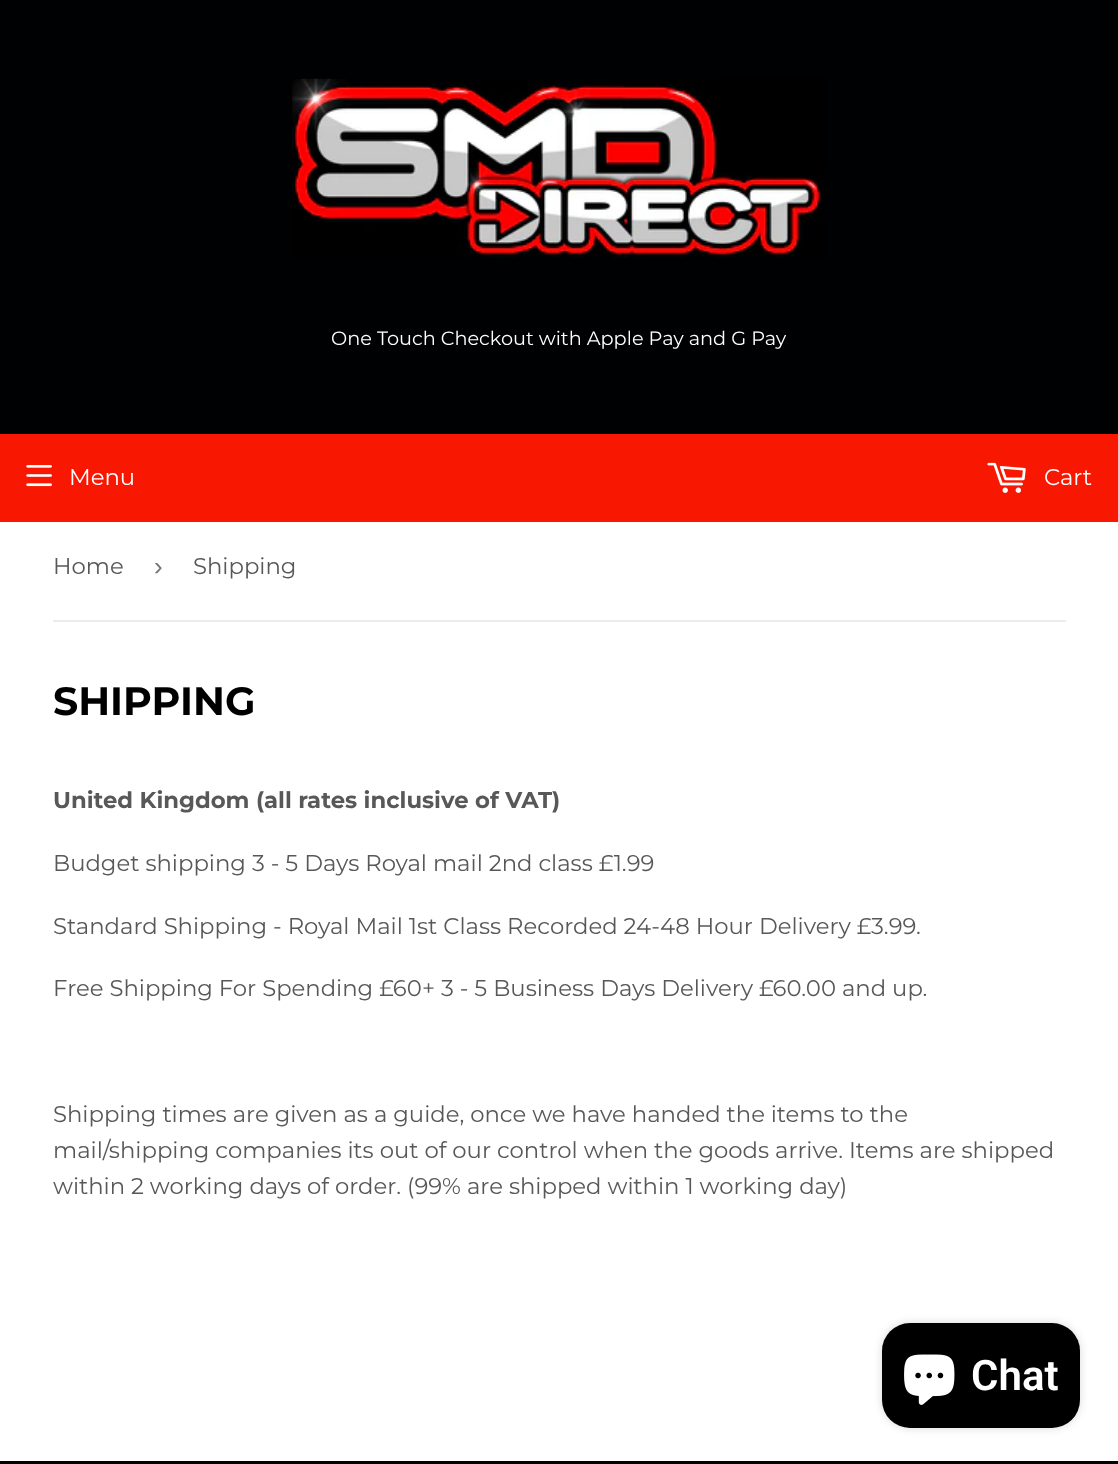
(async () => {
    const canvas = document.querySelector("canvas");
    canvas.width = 1118;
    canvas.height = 1464;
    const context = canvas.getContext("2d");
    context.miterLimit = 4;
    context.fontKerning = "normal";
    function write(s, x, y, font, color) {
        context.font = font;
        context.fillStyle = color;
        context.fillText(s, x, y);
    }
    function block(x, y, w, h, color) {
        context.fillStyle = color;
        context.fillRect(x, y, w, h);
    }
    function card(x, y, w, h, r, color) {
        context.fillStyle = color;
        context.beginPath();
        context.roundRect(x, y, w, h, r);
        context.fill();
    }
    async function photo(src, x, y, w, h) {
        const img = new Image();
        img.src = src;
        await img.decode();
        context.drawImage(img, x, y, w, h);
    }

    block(0, 0, 1118, 1464, "rgb(255, 255, 255)");
    block(0, 0, 1118, 434, "rgb(0, 1, 3)");
    await photo("media/1.png", 292, 78, 534, 180);
    write("One Touch Checkout with Apple Pay and G Pay", 331, 345, "19.3px Montserrat", "rgb(255, 255, 255)");
    block(0, 434, 1118, 88, "rgb(248, 23, 0)");
    await photo("media/2.png", 26, 465, 26, 22);
    write("Menu", 69, 485, "22.75px Montserrat", "rgb(255, 255, 255)");
    await photo("media/3.png", 987, 462, 39, 31);
    write("Cart", 1044, 485, "22.75px Montserrat", "rgb(255, 255, 255)");
    block(53, 620, 1013, 2, "rgb(236, 236, 236)");
    write("Home", 53, 574, "22.75px Montserrat", "rgb(88, 88, 88)");
    write("›", 154, 575, "26px Liberation Sans", "rgb(118, 118, 118)");
    write("Shipping", 193, 574, "22.75px Montserrat", "rgb(88, 88, 88)");
    write("SHIPPING", 53, 715, "bold 39.5px Montserrat", "rgb(0, 0, 0)");
    write("United Kingdom (all rates inclusive of VAT)", 53, 808, "bold 22.75px Montserrat", "rgb(88, 88, 88)");
    write("Budget shipping 3 - 5 Days Royal mail 2nd class £1.99", 53, 871, "22.75px Montserrat", "rgb(88, 88, 88)");
    write("Standard Shipping - Royal Mail 1st Class Recorded 24-48 Hour Delivery £3.99.", 53, 934, "22.75px Montserrat", "rgb(88, 88, 88)");
    write("Free Shipping For Spending £60+ 3 - 5 Business Days Delivery £60.00 and up.", 53, 996, "22.75px Montserrat", "rgb(88, 88, 88)");
    write("Shipping times are given as a guide, once we have handed the items to the", 53, 1122, "22.75px Montserrat", "rgb(88, 88, 88)");
    write("mail/shipping companies its out of our control when the goods arrive. Items are shipped", 53, 1158, "22.75px Montserrat", "rgb(88, 88, 88)");
    write("within 2 working days of order. (99% are shipped within 1 working day)", 53, 1194, "22.75px Montserrat", "rgb(88, 88, 88)");
    context.fillStyle = "rgba(0, 0, 0, 0.15)";
    context.filter = "blur(4.5px)";
    context.beginPath();
    context.roundRect(882, 1323, 198, 105, 28);
    context.fill();
    context.filter = "none";
    card(882, 1323, 198, 105, 28, "rgb(0, 0, 0)");
    await photo("media/4.png", 904, 1354, 51, 51);
    write("Chat", 971, 1390, "600 42px Roboto", "rgb(255, 255, 255)");
    block(0, 1461, 1118, 3, "rgb(0, 0, 0)");
})();
